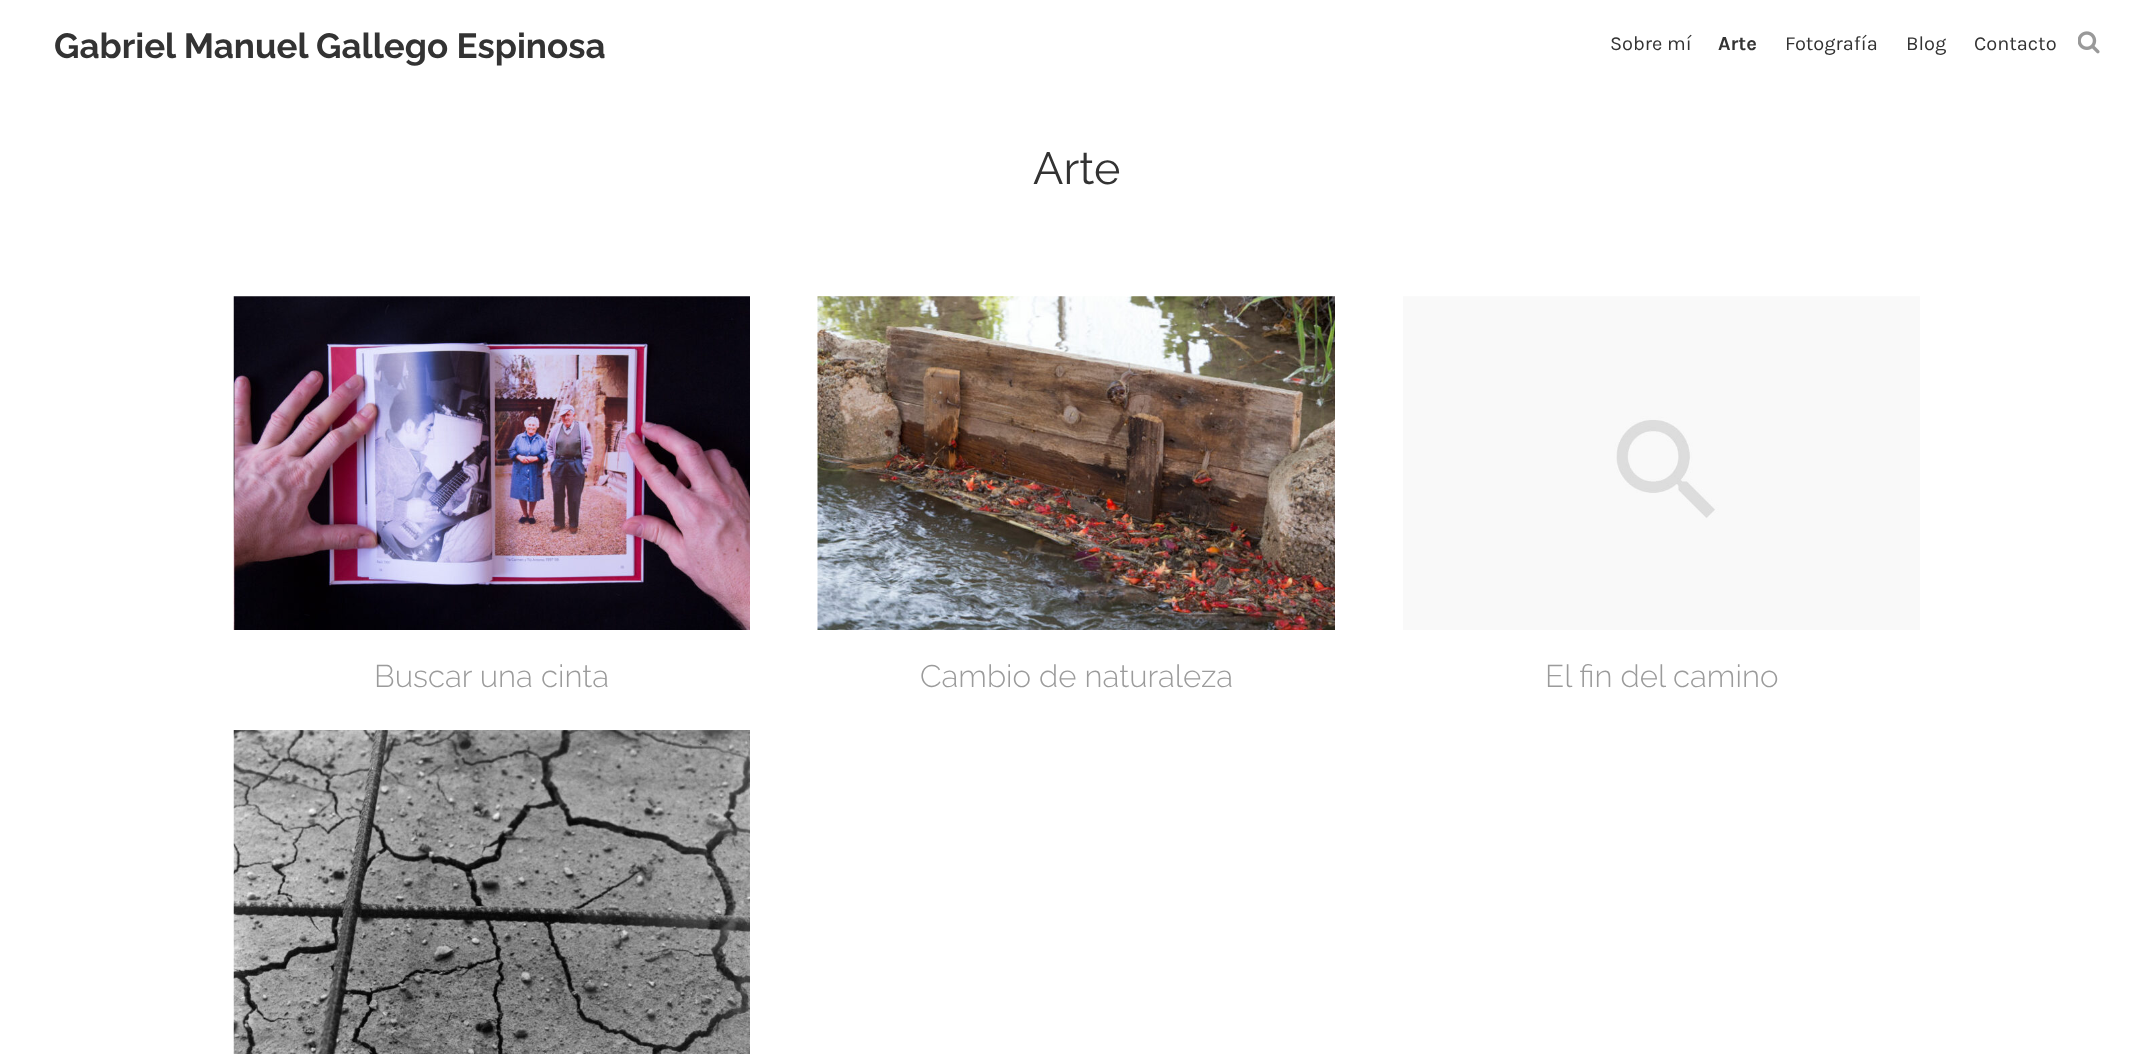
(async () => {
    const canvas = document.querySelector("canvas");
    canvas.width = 2153;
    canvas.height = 1054;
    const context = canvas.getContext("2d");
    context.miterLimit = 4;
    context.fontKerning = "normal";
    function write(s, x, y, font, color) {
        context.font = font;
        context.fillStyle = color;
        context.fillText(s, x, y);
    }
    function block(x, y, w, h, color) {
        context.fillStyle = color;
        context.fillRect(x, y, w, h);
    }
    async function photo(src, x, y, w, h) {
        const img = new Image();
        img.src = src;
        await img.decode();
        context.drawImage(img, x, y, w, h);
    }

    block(0, 0, 2153, 1054, "rgb(255, 255, 255)");
    write("Gabriel Manuel Gallego Espinosa", 54, 58, "bold 35px Raleway", "rgb(51, 51, 51)");
    write("Sobre mí", 1610, 50, "20px Karla", "rgb(51, 51, 51)");
    write("Arte", 1718, 50, "bold 20px Karla", "rgb(51, 51, 51)");
    write("Fotografía", 1785, 50, "20px Karla", "rgb(51, 51, 51)");
    write("Blog", 1906, 50, "20px Karla", "rgb(51, 51, 51)");
    write("Contacto", 1974, 50, "20px Karla", "rgb(51, 51, 51)");
    await photo("media/1.png", 2078, 31, 22, 23);
    write("Arte", 1033, 184, "45px Raleway", "rgb(51, 51, 51)");
    await photo("media/2.png", 233, 296, 517, 334);
    write("Buscar una cinta", 374, 687, "300 31.25px Raleway", "rgb(155, 155, 155)");
    await photo("media/3.png", 817, 296, 518, 334);
    write("Cambio de naturaleza", 920, 687, "300 31.25px Raleway", "rgb(155, 155, 155)");
    await photo("media/4.png", 1403, 296, 517, 334);
    write("El fin del camino", 1545, 687, "300 31.25px Raleway", "rgb(155, 155, 155)");
    await photo("media/5.png", 233, 730, 517, 324);
})();
